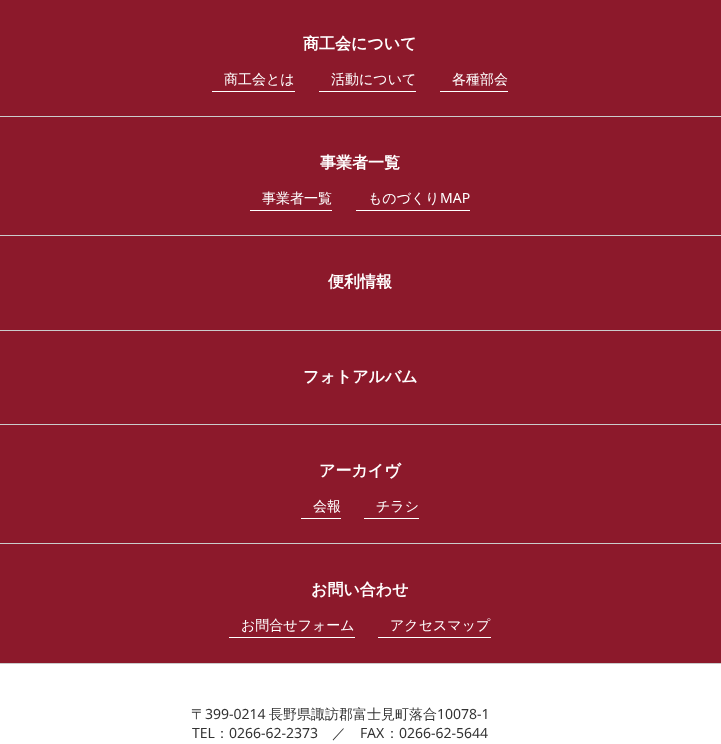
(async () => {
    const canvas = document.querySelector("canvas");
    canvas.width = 721;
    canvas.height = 744;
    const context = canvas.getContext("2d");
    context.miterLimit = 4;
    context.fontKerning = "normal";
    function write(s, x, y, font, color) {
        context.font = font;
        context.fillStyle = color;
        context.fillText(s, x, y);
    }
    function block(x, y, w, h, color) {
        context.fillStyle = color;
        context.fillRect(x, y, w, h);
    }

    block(0, 0, 721, 744, "rgb(140, 25, 43)");
    block(0, 116, 721, 1, "rgb(203, 203, 203)");
    write("商工会について", 303, 49, "bold 16px WenQuanYi Zen Hei", "rgb(255, 255, 255)");
    write("商工会とは", 224, 84, "500 14px WenQuanYi Zen Hei", "rgb(255, 255, 255)");
    block(212, 91, 83, 1, "rgb(255, 255, 255)");
    write("活動について", 331, 84, "500 14px WenQuanYi Zen Hei", "rgb(255, 255, 255)");
    block(319, 91, 97, 1, "rgb(255, 255, 255)");
    write("各種部会", 452, 84, "500 14px WenQuanYi Zen Hei", "rgb(255, 255, 255)");
    block(440, 91, 68, 1, "rgb(255, 255, 255)");
    block(0, 235, 721, 1, "rgb(203, 203, 203)");
    write("事業者一覧", 320, 168, "bold 16px WenQuanYi Zen Hei", "rgb(255, 255, 255)");
    write("事業者一覧", 262, 203, "500 14px WenQuanYi Zen Hei", "rgb(255, 255, 255)");
    block(250, 210, 82, 1, "rgb(255, 255, 255)");
    write("ものづくり", 368, 203, "500 14px WenQuanYi Zen Hei", "rgb(255, 255, 255)");
    block(356, 210, 114, 1, "rgb(255, 255, 255)");
    write("MAP", 440, 203, "14px Noto Sans", "rgb(255, 255, 255)");
    block(0, 330, 721, 1, "rgb(203, 203, 203)");
    write("便利情報", 328, 287, "bold 16px WenQuanYi Zen Hei", "rgb(255, 255, 255)");
    block(0, 424, 721, 1, "rgb(203, 203, 203)");
    write("フォトアルバム", 303, 382, "bold 16px WenQuanYi Zen Hei", "rgb(255, 255, 255)");
    block(0, 543, 721, 1, "rgb(203, 203, 203)");
    write("アーカイヴ", 319, 476, "bold 16px WenQuanYi Zen Hei", "rgb(255, 255, 255)");
    write("会報", 313, 511, "500 14px WenQuanYi Zen Hei", "rgb(255, 255, 255)");
    block(301, 518, 40, 1, "rgb(255, 255, 255)");
    write("チラシ", 376, 511, "500 14px WenQuanYi Zen Hei", "rgb(255, 255, 255)");
    block(364, 518, 55, 1, "rgb(255, 255, 255)");
    block(0, 663, 721, 1, "rgb(203, 203, 203)");
    write("お問い合わせ", 311, 595, "bold 16px WenQuanYi Zen Hei", "rgb(255, 255, 255)");
    write("お問合せフォーム", 241, 630, "500 14px WenQuanYi Zen Hei", "rgb(255, 255, 255)");
    block(229, 637, 126, 1, "rgb(255, 255, 255)");
    write("アクセスマップ", 390, 630, "500 14px WenQuanYi Zen Hei", "rgb(255, 255, 255)");
    block(378, 637, 113, 1, "rgb(255, 255, 255)");
    block(0, 664, 721, 80, "rgb(255, 255, 255)");
    write("〒", 191, 719, "500 14px WenQuanYi Zen Hei", "rgb(51, 51, 51)");
    write("399-0214", 205, 719, "14px Noto Sans", "rgb(51, 51, 51)");
    write("長野県諏訪郡富士見町落合", 269, 719, "500 14px WenQuanYi Zen Hei", "rgb(51, 51, 51)");
    write("10078-1", 437, 719, "14px Noto Sans", "rgb(51, 51, 51)");
    write("TEL", 192, 738, "14px Noto Sans", "rgb(51, 51, 51)");
    write("：", 215, 738, "500 14px WenQuanYi Zen Hei", "rgb(51, 51, 51)");
    write("0266-62-2373", 229, 738, "14px Noto Sans", "rgb(51, 51, 51)");
    write("／", 332, 738, "500 14px WenQuanYi Zen Hei", "rgb(51, 51, 51)");
    write("FAX", 360, 738, "14px Noto Sans", "rgb(51, 51, 51)");
    write("：", 385, 738, "500 14px WenQuanYi Zen Hei", "rgb(51, 51, 51)");
    write("0266-62-5644", 399, 738, "14px Noto Sans", "rgb(51, 51, 51)");
})();
